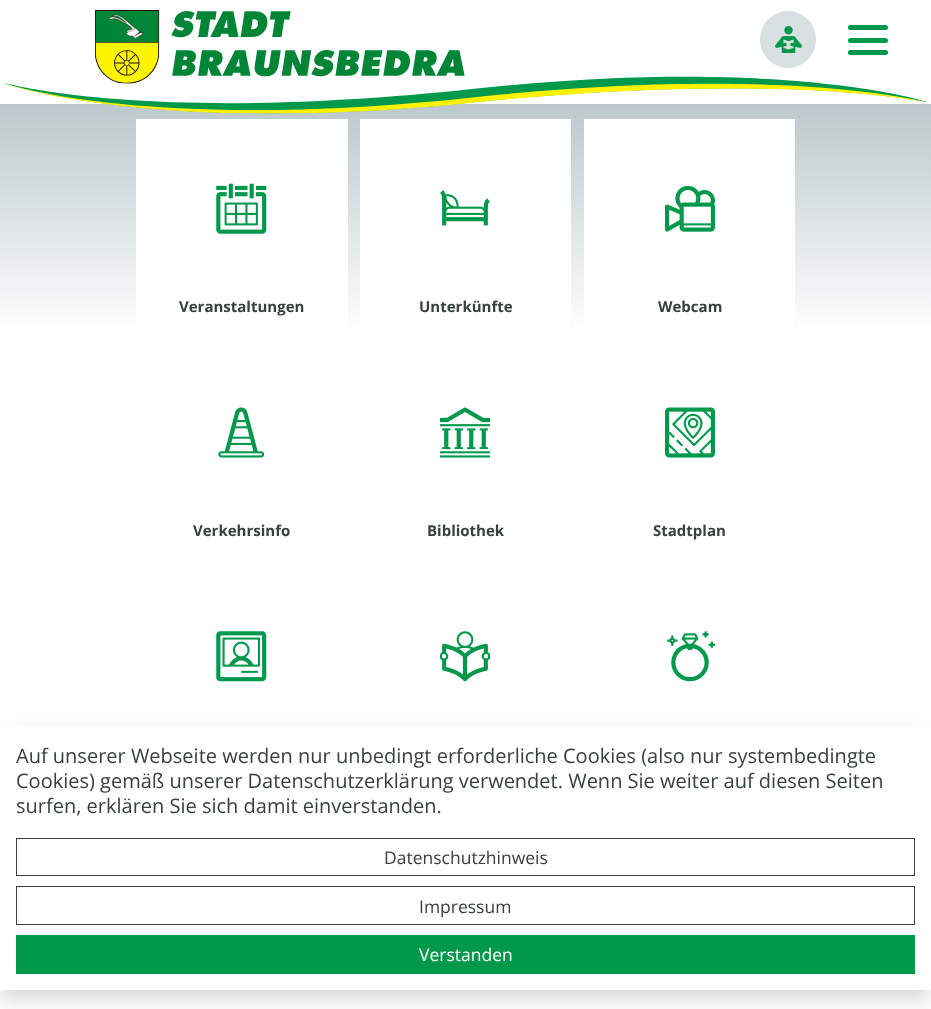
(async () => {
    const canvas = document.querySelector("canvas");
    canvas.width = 931;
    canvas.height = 1009;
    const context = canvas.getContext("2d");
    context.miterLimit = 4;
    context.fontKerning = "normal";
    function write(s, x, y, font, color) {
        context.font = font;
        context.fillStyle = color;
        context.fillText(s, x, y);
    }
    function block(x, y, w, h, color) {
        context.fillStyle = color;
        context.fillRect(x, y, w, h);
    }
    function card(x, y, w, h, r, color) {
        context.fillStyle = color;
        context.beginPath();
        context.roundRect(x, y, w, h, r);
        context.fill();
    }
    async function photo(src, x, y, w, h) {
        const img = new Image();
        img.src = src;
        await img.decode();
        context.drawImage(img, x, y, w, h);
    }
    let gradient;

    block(0, 0, 931, 1009, "rgb(255, 255, 255)");
    gradient = context.createLinearGradient(466, 104, 466, 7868);
    gradient.addColorStop(0, "rgb(188, 200, 204)");
    gradient.addColorStop(0.03, "rgb(255, 255, 255)");
    context.fillStyle = gradient;
    context.fillRect(0, 104, 931, 224);
    await photo("media/3.png", 2, 76, 926, 38);
    await photo("media/1.png", 95, 10, 370, 74);
    context.fillStyle = "rgb(217, 224, 226)";
    context.beginPath();
    context.roundRect(760.5, 11.5, 55, 56, 27.5);
    context.fill();
    context.strokeStyle = "rgb(217, 224, 226)";
    context.stroke();
    await photo("media/2.png", 775, 25, 27, 28);
    card(848, 25, 40, 5, 2.5, "rgb(0, 152, 74)");
    card(848, 38, 40, 5, 2.5, "rgb(0, 152, 74)");
    card(848, 50, 40, 5, 2.5, "rgb(0, 152, 74)");
    block(136, 119, 212, 209, "rgb(255, 255, 255)");
    await photo("media/4.png", 216, 183, 51, 51);
    write("Veranstaltungen", 179, 312, "bold 15px Open Sans", "rgb(54, 65, 62)");
    block(360, 119, 211, 209, "rgb(255, 255, 255)");
    await photo("media/5.png", 440, 190, 50, 36);
    write("Unterkünfte", 419, 312, "bold 15px Open Sans", "rgb(54, 65, 62)");
    block(584, 119, 211, 209, "rgb(255, 255, 255)");
    await photo("media/6.png", 665, 185, 50, 47);
    write("Webcam", 658, 312, "bold 15px Open Sans", "rgb(54, 65, 62)");
    await photo("media/7.png", 218, 407, 47, 51);
    write("Verkehrsinfo", 193, 536, "bold 15px Open Sans", "rgb(54, 65, 62)");
    await photo("media/8.png", 440, 407, 50, 51);
    write("Bibliothek", 427, 536, "bold 15px Open Sans", "rgb(54, 65, 62)");
    await photo("media/9.png", 665, 407, 50, 51);
    write("Stadtplan", 653, 536, "bold 15px Open Sans", "rgb(54, 65, 62)");
    await photo("media/10.png", 216, 631, 51, 51);
    await photo("media/11.png", 440, 631, 50, 51);
    await photo("media/12.png", 667, 631, 48, 51);
    context.fillStyle = "rgba(0, 0, 0, 0.15)";
    context.filter = "blur(10px)";
    context.beginPath();
    context.rect(0, 736, 931, 264);
    context.fill();
    context.filter = "none";
    block(0, 726, 931, 264, "rgb(255, 255, 255)");
    write("Auf unserer Webseite werden nur unbedingt erforderliche Cookies (also nur systembedingte", 16, 763, "20px Open Sans", "rgb(54, 65, 62)");
    write("Cookies) gemäß unserer Datenschutzerklärung verwendet. Wenn Sie weiter auf diesen Seiten", 16, 788, "20px Open Sans", "rgb(54, 65, 62)");
    write("surfen, erklären Sie sich damit einverstanden.", 16, 813, "20px Open Sans", "rgb(54, 65, 62)");
    context.strokeStyle = "rgb(54, 65, 62)";
    context.strokeRect(16.5, 838.5, 898, 37);
    write("Datenschutzhinweis", 384, 864, "17.5px Open Sans", "rgb(54, 65, 62)");
    context.strokeRect(16.5, 886.5, 898, 38);
    write("Impressum", 419, 913, "17.5px Open Sans", "rgb(54, 65, 62)");
    block(16, 935, 899, 39, "rgb(0, 152, 74)");
    write("Verstanden", 419, 961, "17.5px Open Sans", "rgb(255, 255, 255)");
})();
